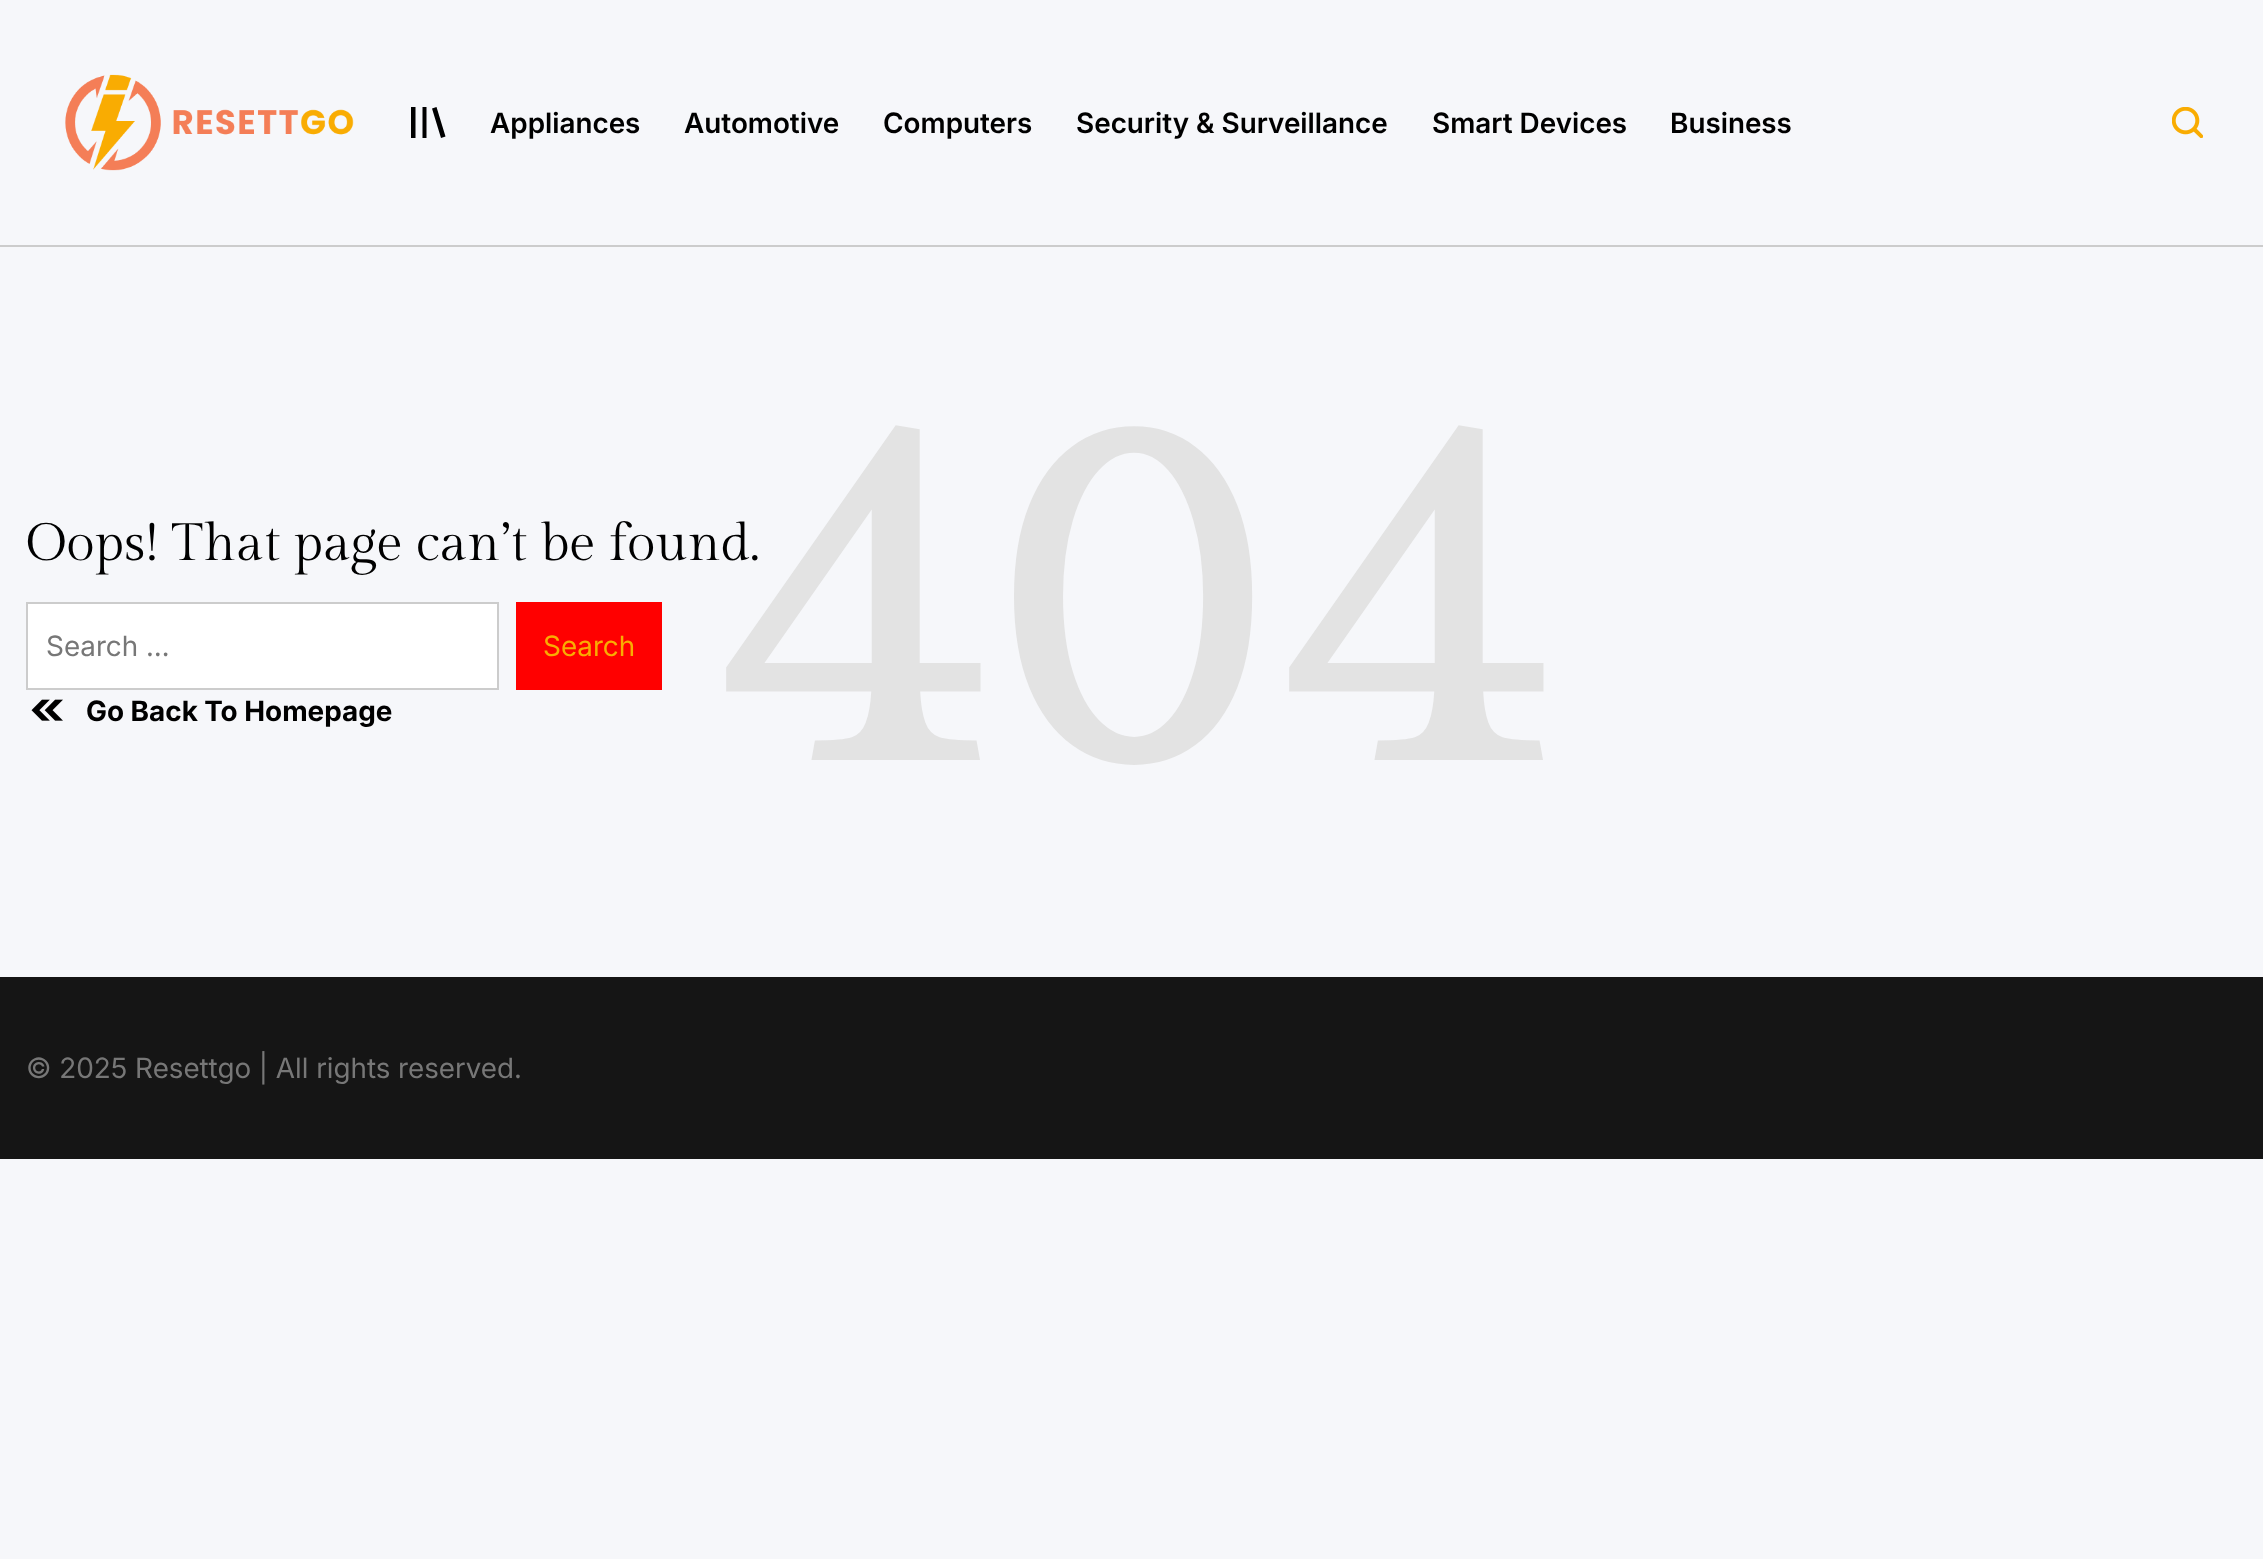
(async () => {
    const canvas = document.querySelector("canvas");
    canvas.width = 2263;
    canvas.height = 1559;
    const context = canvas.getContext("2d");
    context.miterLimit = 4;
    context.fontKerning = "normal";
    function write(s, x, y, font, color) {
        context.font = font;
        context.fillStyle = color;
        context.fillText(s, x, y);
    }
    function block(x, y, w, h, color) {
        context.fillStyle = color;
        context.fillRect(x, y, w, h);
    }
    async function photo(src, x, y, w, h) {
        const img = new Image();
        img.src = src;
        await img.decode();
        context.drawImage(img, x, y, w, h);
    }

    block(0, 0, 2263, 1559, "rgb(246, 247, 250)");
    block(0, 245, 2263, 2, "rgb(204, 204, 204)");
    await photo("media/1.png", 65, 74, 289, 97);
    context.fillStyle = "rgb(0, 0, 0)";
    context.beginPath();
    context.moveTo(422.5, 138);
    context.lineTo(422.5, 107);
    context.lineTo(426.5, 107);
    context.lineTo(426.5, 138);
    context.closePath();
    context.moveTo(441, 138);
    context.lineTo(432, 108.5);
    context.lineTo(436.5, 107);
    context.lineTo(445.5, 136.5);
    context.closePath();
    context.moveTo(411, 138);
    context.lineTo(411, 107);
    context.lineTo(415.5, 107);
    context.lineTo(415.5, 138);
    context.closePath();
    context.fill();
    write("Appliances", 490, 133, "600 28px Inter", "rgb(0, 0, 0)");
    write("Automotive", 684, 133, "600 28px Inter", "rgb(0, 0, 0)");
    write("Computers", 883, 133, "600 28px Inter", "rgb(0, 0, 0)");
    write("Security & Surveillance", 1076, 133, "600 28px Inter", "rgb(0, 0, 0)");
    write("Smart Devices", 1432, 133, "600 28px Inter", "rgb(0, 0, 0)");
    write("Business", 1670, 133, "600 28px Inter", "rgb(0, 0, 0)");
    await photo("media/2.png", 2172, 107, 31, 31);
    context.letterSpacing = "12px";
    write("404", 710, 760, "bold 490px Gilda Display", "rgb(227, 227, 227)");
    context.letterSpacing = "0px";
    write("Oops! That page can’t be found.", 26, 560, "52.5px Gilda Display", "rgb(0, 0, 0)");
    context.fillStyle = "rgb(255, 255, 255)";
    context.beginPath();
    context.rect(27, 603, 471, 86);
    context.fill();
    context.strokeStyle = "rgb(204, 204, 204)";
    context.lineWidth = 2;
    context.stroke();
    write("Search …", 46, 656, "28px Inter", "rgb(119, 119, 119)");
    block(516, 602, 146, 88, "rgb(255, 0, 0)");
    write("Search", 543, 656, "28px Inter", "rgb(249, 172, 2)");
    await photo("media/3.png", 31, 699, 32, 22);
    write("Go Back To Homepage", 86, 721, "bold 28px Inter", "rgb(0, 0, 0)");
    block(0, 977, 2263, 182, "rgb(21, 21, 21)");
    write("© 2025 Resettgo | All rights reserved.", 26, 1078, "28px Inter", "rgb(119, 119, 119)");
})();
